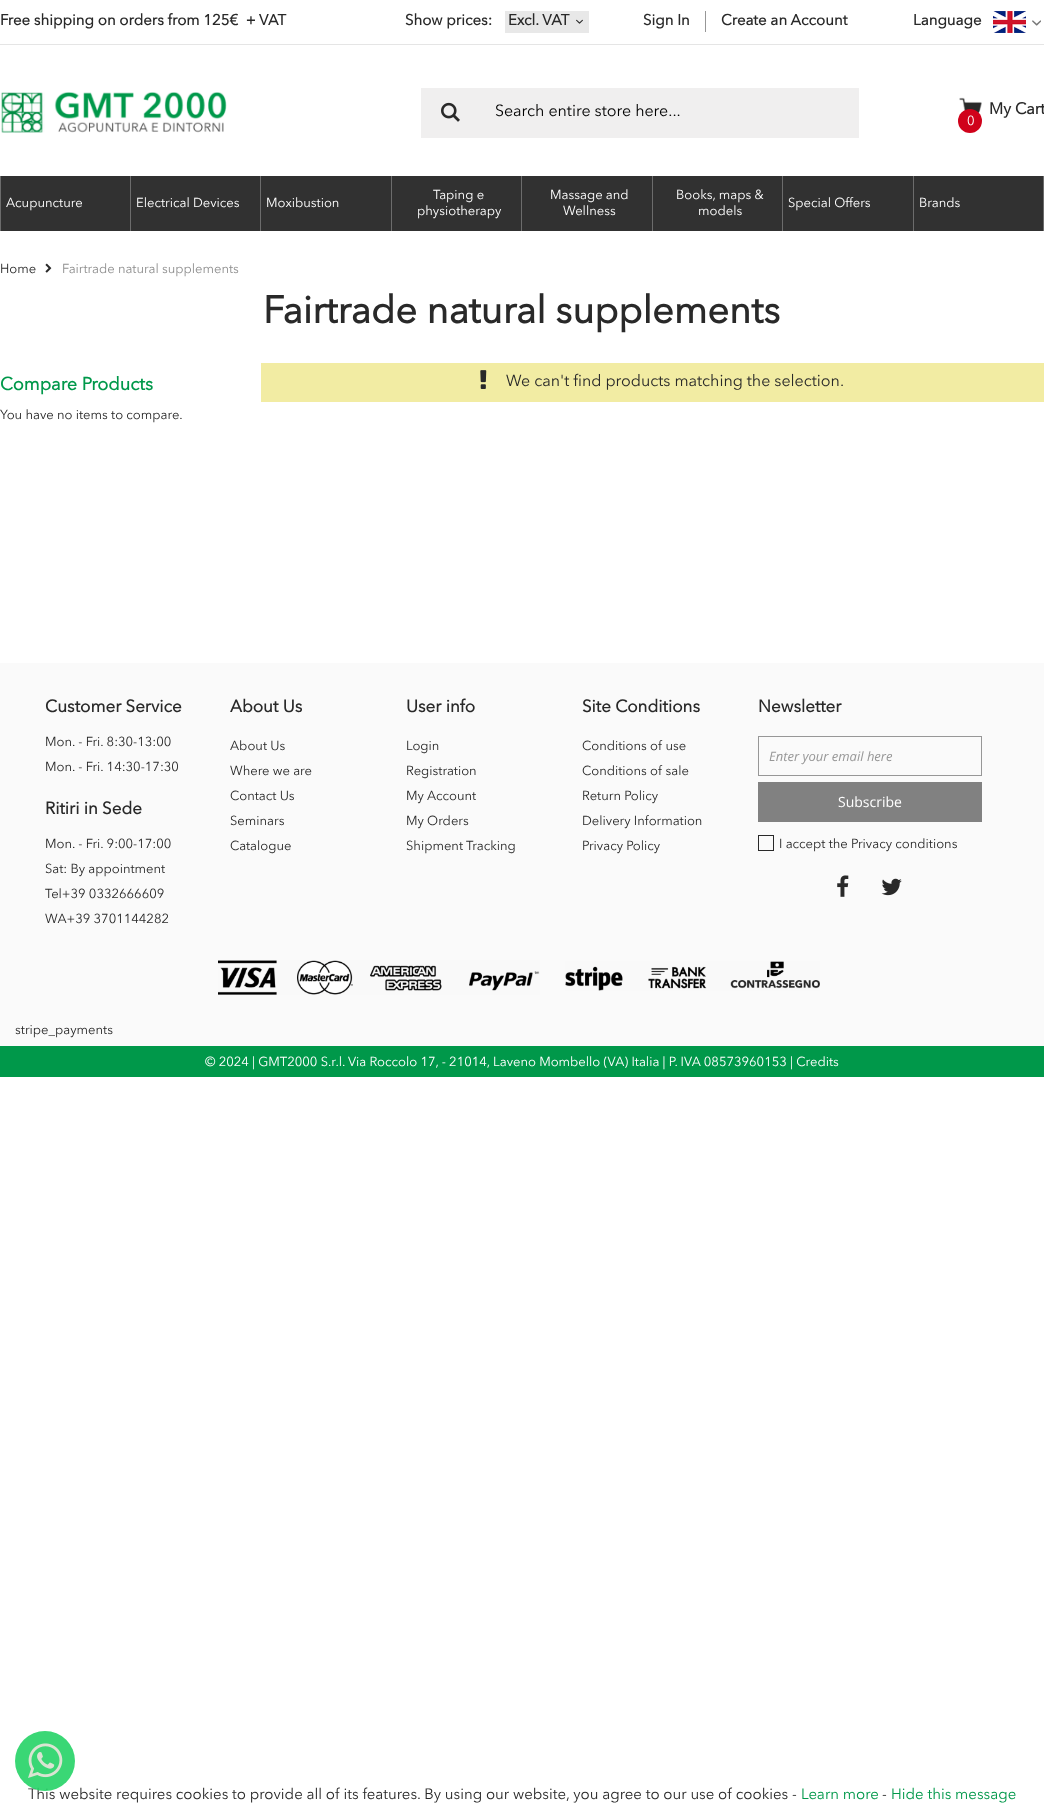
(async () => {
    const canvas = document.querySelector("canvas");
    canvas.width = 1044;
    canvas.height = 1816;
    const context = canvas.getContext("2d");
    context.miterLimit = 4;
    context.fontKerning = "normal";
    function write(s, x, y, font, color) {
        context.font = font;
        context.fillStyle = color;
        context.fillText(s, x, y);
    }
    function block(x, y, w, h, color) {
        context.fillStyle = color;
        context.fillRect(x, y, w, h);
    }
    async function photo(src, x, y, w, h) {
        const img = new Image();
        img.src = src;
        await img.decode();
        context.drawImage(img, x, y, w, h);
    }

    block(0, 0, 1044, 1816, "rgb(255, 255, 255)");
    block(0, 44, 1044, 1, "rgb(229, 229, 229)");
    write("Free shipping on orders from 125€  + VAT", 0, 25, "bold 15px Avenir Next", "rgb(41, 41, 41)");
    write("Show prices:", 405, 25, "bold 15px Avenir Next", "rgb(41, 41, 41)");
    block(505, 11, 84, 22, "rgb(232, 232, 232)");
    write("Excl. VAT", 508, 25, "bold 15px Avenir Next", "rgb(41, 41, 41)");
    await photo("media/1.png", 576, 19, 7, 5);
    write("Sign In", 643, 25, "bold 15px Avenir Next", "rgb(41, 41, 41)");
    block(705, 11, 1, 21, "rgb(151, 151, 151)");
    write("Create an Account", 721, 25, "bold 15px Avenir Next", "rgb(41, 41, 41)");
    write("Language", 913, 25, "bold 15px Avenir Next", "rgb(41, 41, 41)");
    await photo("media/2.png", 993, 11, 33, 22);
    await photo("media/3.png", 1032, 20, 9, 6);
    await photo("media/4.png", 1, 92, 226, 41);
    block(421, 88, 438, 50, "rgb(240, 239, 239)");
    await photo("media/5.png", 441, 102, 19, 20);
    write("Search entire store here...", 495, 116, "16px Avenir Next", "rgb(0, 0, 0)");
    await photo("media/6.png", 959, 97, 23, 17);
    write("My Cart", 989, 114, "bold 16px Avenir Next", "rgb(41, 41, 41)");
    context.fillStyle = "rgb(208, 2, 27)";
    context.beginPath();
    context.arc(970, 121, 12, 0, Math.PI * 2);
    context.fill();
    write("0", 967, 125, "13px Avenir Next", "rgb(255, 255, 255)");
    block(1, 176, 1042, 55, "rgb(49, 49, 49)");
    block(130, 176, 1, 55, "rgb(108, 108, 108)");
    block(0, 176, 1, 55, "rgb(108, 108, 108)");
    write("Acupuncture", 6, 207, "13px Avenir Next", "rgb(255, 255, 255)");
    block(260, 176, 1, 55, "rgb(108, 108, 108)");
    write("Electrical Devices", 136, 207, "13px Avenir Next", "rgb(255, 255, 255)");
    block(391, 176, 1, 55, "rgb(108, 108, 108)");
    write("Moxibustion", 266, 207, "13px Avenir Next", "rgb(255, 255, 255)");
    block(521, 176, 1, 55, "rgb(108, 108, 108)");
    write("Taping e", 433, 199, "13px Avenir Next", "rgb(255, 255, 255)");
    write("physiotherapy", 417, 215, "13px Avenir Next", "rgb(255, 255, 255)");
    block(652, 176, 1, 55, "rgb(108, 108, 108)");
    write("Massage and", 550, 199, "13px Avenir Next", "rgb(255, 255, 255)");
    write("Wellness", 563, 215, "13px Avenir Next", "rgb(255, 255, 255)");
    block(782, 176, 1, 55, "rgb(108, 108, 108)");
    write("Books, maps &", 676, 199, "13px Avenir Next", "rgb(255, 255, 255)");
    write("models", 698, 215, "13px Avenir Next", "rgb(255, 255, 255)");
    block(913, 176, 1, 55, "rgb(108, 108, 108)");
    write("Special Offers", 788, 207, "13px Avenir Next", "rgb(255, 255, 255)");
    block(1043, 176, 1, 55, "rgb(108, 108, 108)");
    write("Brands", 919, 207, "13px Avenir Next", "rgb(255, 255, 255)");
    write("Home", 0, 273, "13px Avenir Next", "rgb(41, 41, 41)");
    await photo("media/7.png", 45, 263, 7, 10);
    write("Fairtrade natural supplements", 62, 273, "13px Avenir Next", "rgb(143, 143, 143)");
    write("Fairtrade natural supplements", 263, 323, "bold 38px Avenir Next", "rgb(41, 41, 41)");
    write("Compare Products", 0, 390, "bold 18px Avenir Next", "rgb(0, 152, 74)");
    write("You have no items to compare.", 0, 419, "13px Avenir Next", "rgb(41, 41, 41)");
    block(261, 363, 783, 39, "rgb(242, 236, 163)");
    await photo("media/8.png", 480, 370, 7, 19);
    write("We can't find products matching the selection.", 506, 386, "16px Avenir Next", "rgb(41, 41, 41)");
    block(0, 663, 1044, 383, "rgb(250, 250, 250)");
    write("Customer Service", 45, 712, "bold 17px Avenir Next", "rgb(41, 41, 41)");
    write("Mon. - Fri. 8:30-13:00", 45, 746, "13px Avenir Next", "rgb(41, 41, 41)");
    write("Mon. - Fri. 14:30-17:30", 45, 771, "13px Avenir Next", "rgb(41, 41, 41)");
    write("Ritiri in Sede", 45, 814, "bold 17px Avenir Next", "rgb(41, 41, 41)");
    write("Mon. - Fri. 9:00-17:00", 45, 848, "13px Avenir Next", "rgb(41, 41, 41)");
    write("Sat: By appointment", 45, 873, "13px Avenir Next", "rgb(41, 41, 41)");
    write("Tel+39 0332666609", 45, 898, "13px Avenir Next", "rgb(41, 41, 41)");
    write("WA+39 3701144282", 45, 923, "13px Avenir Next", "rgb(41, 41, 41)");
    write("About Us", 230, 712, "bold 17px Avenir Next", "rgb(41, 41, 41)");
    write("About Us", 230, 750, "13px Avenir Next", "rgb(41, 41, 41)");
    write("Where we are", 230, 775, "13px Avenir Next", "rgb(41, 41, 41)");
    write("Contact Us", 230, 800, "13px Avenir Next", "rgb(41, 41, 41)");
    write("Seminars", 230, 825, "13px Avenir Next", "rgb(41, 41, 41)");
    write("Catalogue", 230, 850, "13px Avenir Next", "rgb(41, 41, 41)");
    write("User info", 406, 712, "bold 17px Avenir Next", "rgb(41, 41, 41)");
    write("Login", 406, 750, "13px Avenir Next", "rgb(41, 41, 41)");
    write("Registration", 406, 775, "13px Avenir Next", "rgb(41, 41, 41)");
    write("My Account", 406, 800, "13px Avenir Next", "rgb(41, 41, 41)");
    write("My Orders", 406, 825, "13px Avenir Next", "rgb(41, 41, 41)");
    write("Shipment Tracking", 406, 850, "13px Avenir Next", "rgb(41, 41, 41)");
    write("Site Conditions", 582, 712, "bold 17px Avenir Next", "rgb(41, 41, 41)");
    write("Conditions of use", 582, 750, "13px Avenir Next", "rgb(41, 41, 41)");
    write("Conditions of sale", 582, 775, "13px Avenir Next", "rgb(41, 41, 41)");
    write("Return Policy", 582, 800, "13px Avenir Next", "rgb(41, 41, 41)");
    write("Delivery Information", 582, 825, "13px Avenir Next", "rgb(41, 41, 41)");
    write("Privacy Policy", 582, 850, "13px Avenir Next", "rgb(41, 41, 41)");
    write("Newsletter", 758, 712, "bold 17px Avenir Next", "rgb(41, 41, 41)");
    context.strokeStyle = "rgb(151, 151, 151)";
    context.strokeRect(758.5, 736.5, 223, 39);
    write("Enter your email here", 769, 761, "italic 13px Open Sans", "rgb(151, 151, 151)");
    block(758, 782, 224, 40, "rgb(129, 129, 129)");
    write("Subscribe", 838, 807, "14px Open Sans", "rgb(255, 255, 255)");
    context.strokeStyle = "rgb(41, 41, 41)";
    context.strokeRect(758.5, 835.5, 15, 15);
    write("I accept the Privacy conditions", 779, 848, "13px Avenir Next", "rgb(41, 41, 41)");
    await photo("media/9.png", 837, 875, 12, 22);
    await photo("media/10.png", 881, 878, 21, 18);
    await photo("media/11.png", 218, 960, 322, 35);
    await photo("media/12.png", 565, 961, 255, 30);
    write("stripe_payments", 15, 1034, "13px Avenir Next", "rgb(41, 41, 41)");
    block(0, 1046, 1044, 31, "rgb(0, 152, 74)");
    write("© 2024 | GMT2000 S.r.l. Via Roccolo 17, - 21014, Laveno Mombello (VA) Italia | P. IVA 08573960153 | Credits", 205, 1066, "13px Avenir Next", "rgb(255, 255, 255)");
    write("This website requires cookies to provide all of its features. By using our website, you agree to our use of cookies -", 28, 1799, "15px Avenir Next", "rgb(41, 41, 41)");
    context.fillStyle = "rgba(37, 211, 102, 0.9)";
    context.beginPath();
    context.arc(45, 1761, 30, 0, Math.PI * 2);
    context.fill();
    await photo("media/13.png", 28, 1743, 35, 35);
    write("Learn more", 801, 1799, "15px Avenir Next", "rgb(0, 152, 74)");
    write("-", 882, 1799, "15px Avenir Next", "rgb(41, 41, 41)");
    write("Hide this message", 891, 1799, "15px Avenir Next", "rgb(0, 152, 74)");
})();
